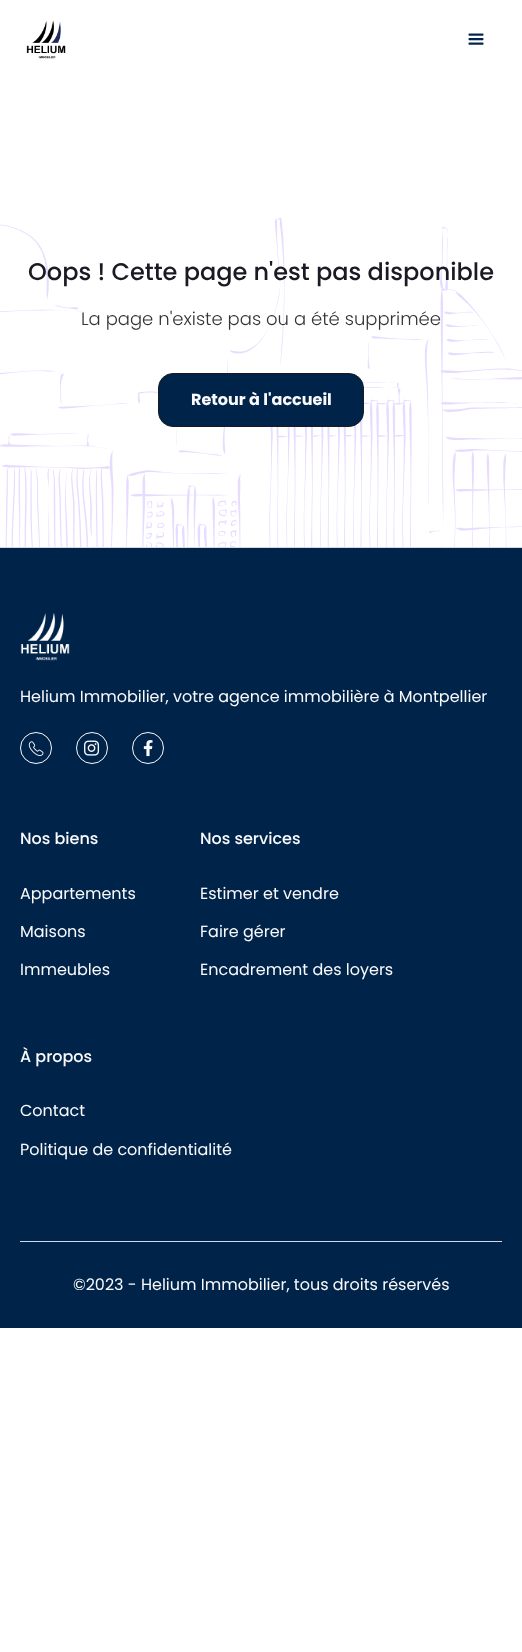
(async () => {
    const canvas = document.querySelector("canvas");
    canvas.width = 522;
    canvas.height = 1652;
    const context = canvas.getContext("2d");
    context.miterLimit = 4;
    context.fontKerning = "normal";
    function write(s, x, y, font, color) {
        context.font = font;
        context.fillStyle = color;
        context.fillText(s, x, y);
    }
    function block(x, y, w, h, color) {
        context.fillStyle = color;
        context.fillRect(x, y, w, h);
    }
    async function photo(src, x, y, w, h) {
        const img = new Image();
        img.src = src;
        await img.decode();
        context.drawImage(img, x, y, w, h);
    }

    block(0, 0, 522, 1652, "rgb(255, 255, 255)");
    await photo("media/1.png", 26, 20, 40, 39);
    await photo("media/2.png", 468, 33, 16, 12);
    await photo("media/3.png", 0, 217, 522, 330);
    write("Oops ! Cette page n'est pas disponible", 28, 280, "500 24px Poppins", "rgb(25, 26, 35)");
    write("La page n'existe pas ou a été supprimée", 81, 325, "300 18px Poppins", "rgb(51, 51, 51)");
    context.fillStyle = "rgb(0, 35, 73)";
    context.beginPath();
    context.roundRect(158.5, 373.5, 205, 53, 14.5);
    context.fill();
    context.strokeStyle = "rgb(25, 26, 35)";
    context.stroke();
    write("Retour à l'accueil", 191, 405, "bold 16px Poppins", "rgb(250, 250, 252)");
    block(0, 548, 522, 780, "rgb(0, 35, 73)");
    block(0, 547, 522, 1, "rgb(214, 215, 224)");
    await photo("media/4.png", 20, 613, 50, 48);
    write("Helium Immobilier, votre agence immobilière à Montpellier", 20, 702, "16px Poppins", "rgb(250, 250, 252)");
    context.beginPath();
    context.arc(36, 748, 15.5, 0, Math.PI * 2);
    context.strokeStyle = "rgb(250, 250, 252)";
    context.stroke();
    await photo("media/5.png", 28, 741, 16, 15);
    context.beginPath();
    context.arc(92, 748, 15.5, 0, Math.PI * 2);
    context.stroke();
    await photo("media/6.png", 84, 740, 16, 16);
    context.beginPath();
    context.arc(148, 748, 15.5, 0, Math.PI * 2);
    context.stroke();
    await photo("media/7.png", 143, 740, 10, 17);
    write("Nos biens", 20, 844, "500 16px Poppins", "rgb(250, 250, 252)");
    write("Appartements", 20, 899, "16px Poppins", "rgb(250, 250, 252)");
    write("Maisons", 20, 937, "16px Poppins", "rgb(250, 250, 252)");
    write("Immeubles", 20, 975, "16px Poppins", "rgb(250, 250, 252)");
    write("Nos services", 200, 844, "500 16px Poppins", "rgb(250, 250, 252)");
    write("Estimer et vendre", 200, 899, "16px Poppins", "rgb(250, 250, 252)");
    write("Faire gérer", 200, 937, "16px Poppins", "rgb(250, 250, 252)");
    write("Encadrement des loyers", 200, 975, "16px Poppins", "rgb(250, 250, 252)");
    write("À propos", 20, 1062, "500 16px Poppins", "rgb(250, 250, 252)");
    write("Contact", 20, 1116, "16px Poppins", "rgb(250, 250, 252)");
    write("Politique de confidentialité", 20, 1155, "16px Poppins", "rgb(250, 250, 252)");
    block(20, 1241, 482, 1, "rgb(214, 215, 224)");
    write("©2023 - Helium Immobilier, tous droits réservés", 73, 1290, "16px Poppins", "rgb(250, 250, 252)");
})();
